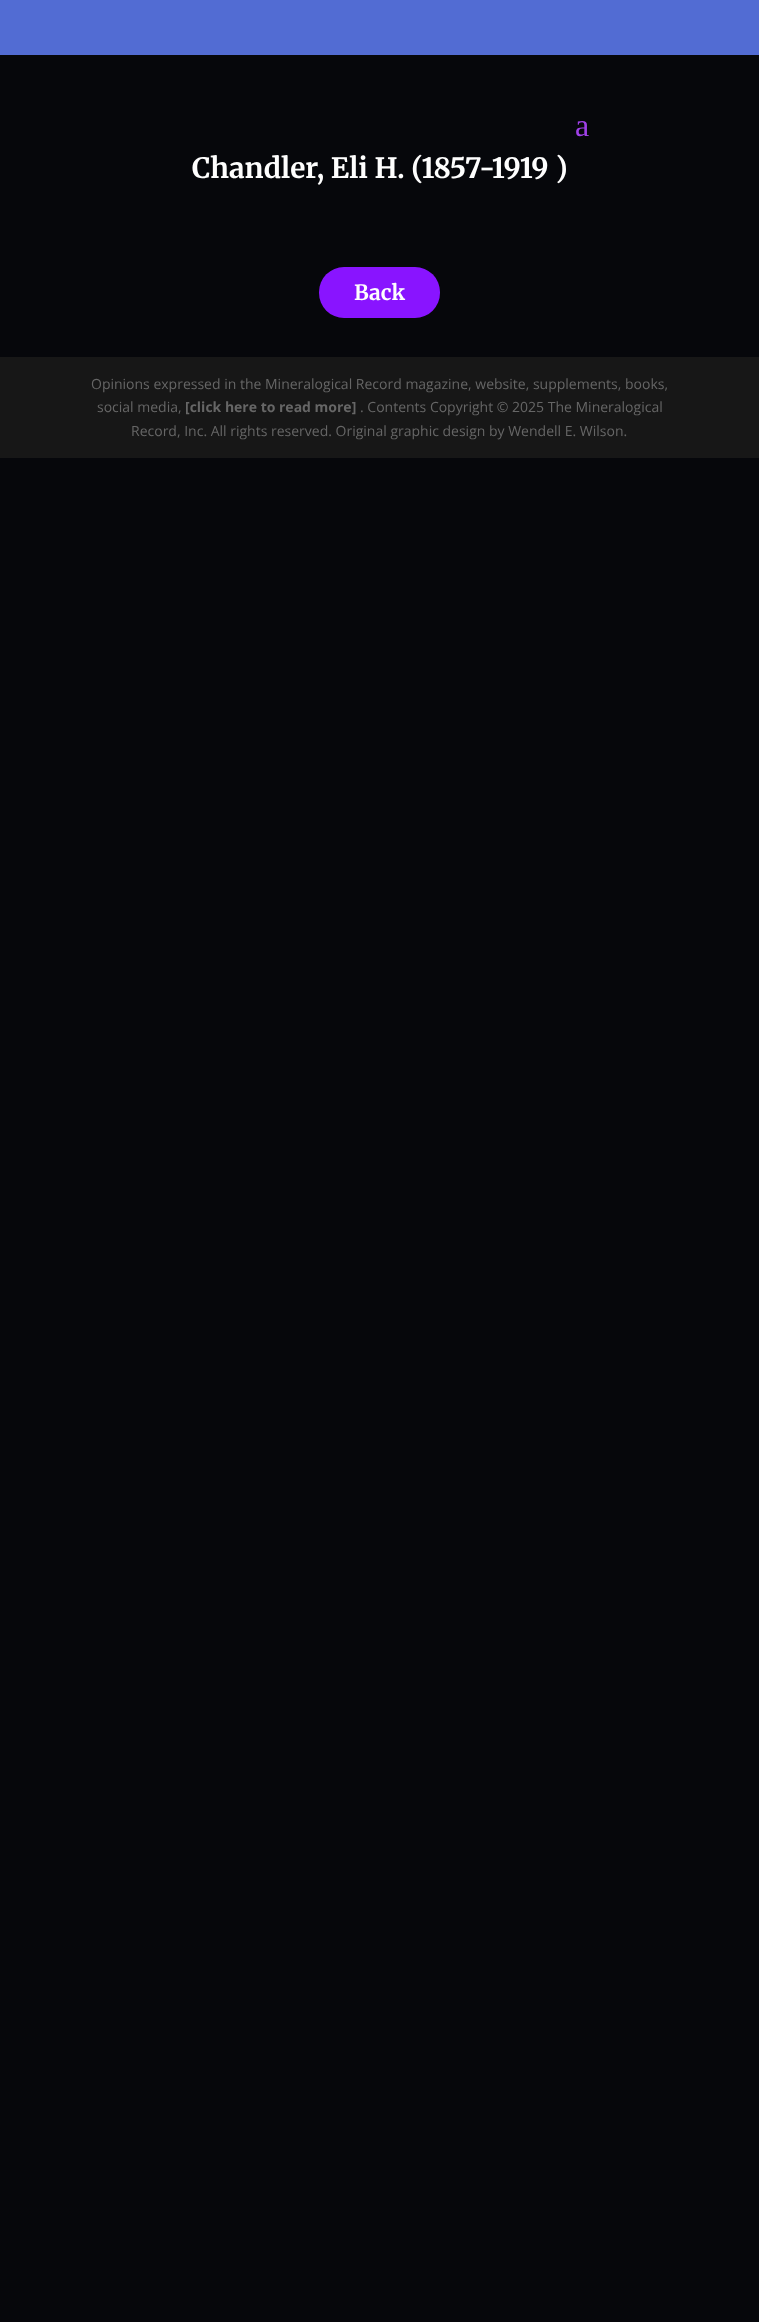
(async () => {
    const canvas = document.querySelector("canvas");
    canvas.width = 759;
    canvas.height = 2322;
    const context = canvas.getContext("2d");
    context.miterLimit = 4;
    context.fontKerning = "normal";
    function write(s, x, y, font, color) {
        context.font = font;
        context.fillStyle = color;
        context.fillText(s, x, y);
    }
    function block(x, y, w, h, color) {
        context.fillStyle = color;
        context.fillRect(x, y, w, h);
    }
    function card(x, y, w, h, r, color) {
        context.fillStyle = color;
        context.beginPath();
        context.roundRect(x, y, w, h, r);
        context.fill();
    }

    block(0, 0, 759, 2322, "rgb(6, 7, 11)");
    block(0, 0, 759, 55, "rgb(82, 108, 211)");
    write("a", 575, 136, "32px Liberation Serif", "rgb(159, 64, 232)");
    write("Chandler, Eli H. (1857-1919 )", 192, 178, "bold 28px Merriweather", "rgb(254, 254, 254)");
    card(319, 267, 121, 51, 25, "rgb(137, 20, 255)");
    write("Back", 354, 300, "bold 21px Merriweather", "rgb(254, 254, 254)");
    block(0, 357, 759, 101, "rgb(23, 23, 23)");
    write("Opinions expressed in the Mineralogical Record magazine, website, supplements, books,", 91, 389, "14px Open Sans", "rgb(102, 102, 102)");
    write("social media,", 97, 412, "14px Open Sans", "rgb(102, 102, 102)");
    write("[click here to read more]", 185, 412, "bold 14px Open Sans", "rgb(102, 102, 102)");
    write(". Contents Copyright © 2025 The Mineralogical", 360, 412, "14px Open Sans", "rgb(102, 102, 102)");
    write("Record, Inc. All rights reserved. Original graphic design by Wendell E. Wilson.", 131, 436, "14px Open Sans", "rgb(102, 102, 102)");
})();
